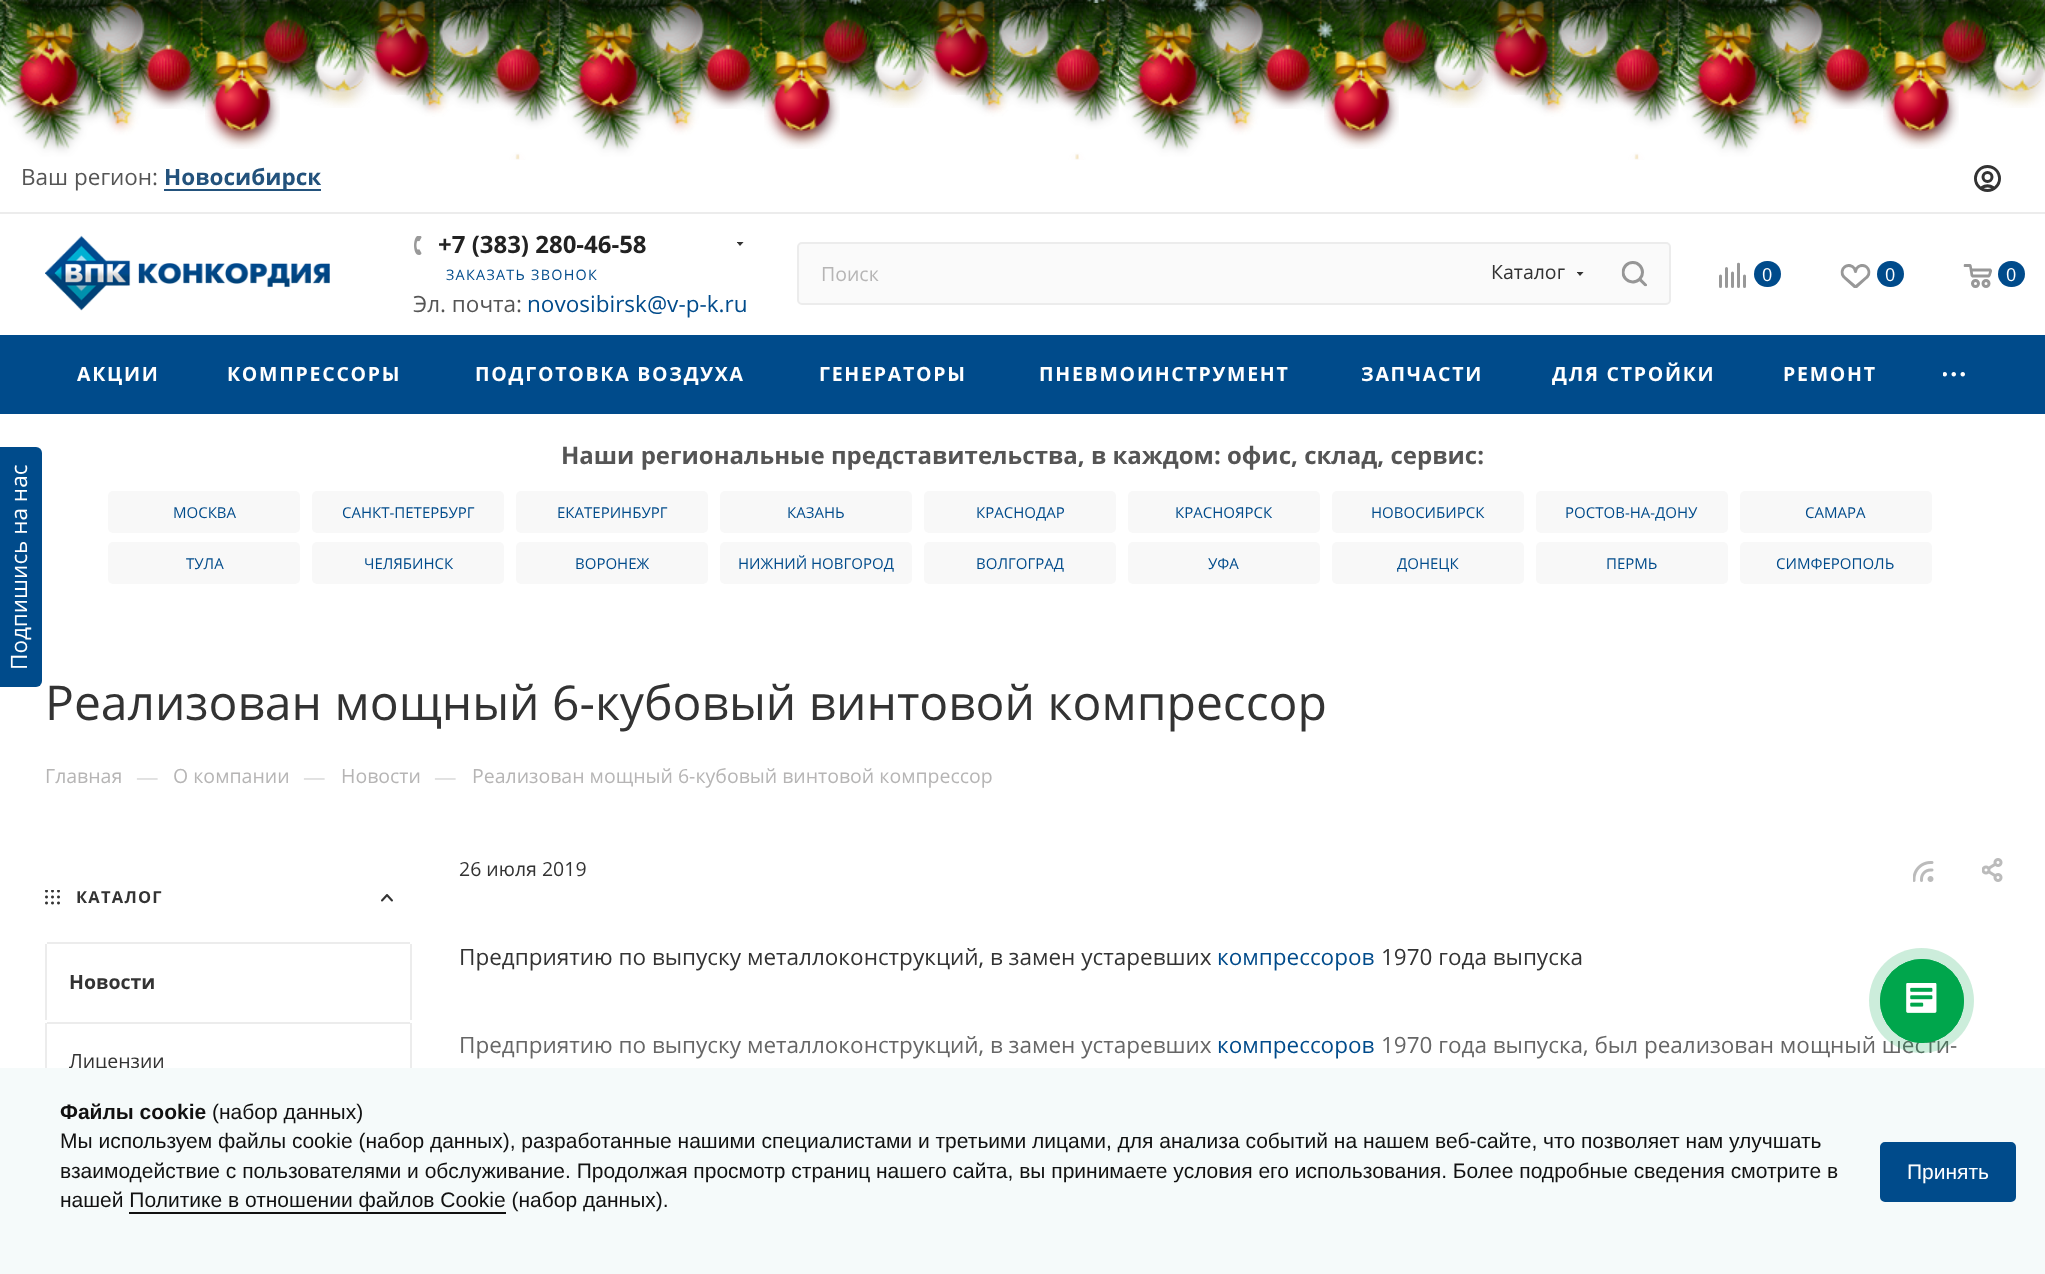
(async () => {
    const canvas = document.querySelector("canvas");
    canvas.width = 2045;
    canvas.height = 1274;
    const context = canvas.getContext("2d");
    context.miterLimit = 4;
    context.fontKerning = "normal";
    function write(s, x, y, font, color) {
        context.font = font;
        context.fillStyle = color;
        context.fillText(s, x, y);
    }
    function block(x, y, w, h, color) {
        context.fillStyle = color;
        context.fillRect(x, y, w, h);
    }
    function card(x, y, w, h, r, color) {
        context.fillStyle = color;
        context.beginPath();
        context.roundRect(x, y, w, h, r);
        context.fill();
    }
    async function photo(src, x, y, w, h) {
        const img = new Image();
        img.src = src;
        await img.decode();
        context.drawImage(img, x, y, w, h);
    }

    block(0, 0, 2045, 1274, "rgb(255, 255, 255)");
    await photo("media/6.png", 0, 0, 2045, 160);
    await photo("media/8.png", 10, 0, 78, 123);
    await photo("media/7.png", 0, 0, 38, 107);
    await photo("media/10.png", 81, 0, 73, 70);
    await photo("media/9.png", 37, 0, 92, 40);
    await photo("media/11.png", 205, 0, 75, 149);
    await photo("media/12.png", 255, 0, 61, 80);
    await photo("media/18.png", 306, 9, 68, 99);
    await photo("media/13.png", 265, 0, 43, 46);
    await photo("media/15.png", 365, 0, 73, 95);
    await photo("media/14.png", 307, 0, 76, 75);
    await photo("media/16.png", 431, 0, 69, 73);
    await photo("media/17.png", 137, 13, 62, 96);
    await photo("media/21.png", 487, 15, 63, 95);
    await photo("media/19.png", 433, 0, 118, 42);
    await photo("media/20.png", 550, 0, 10, 104);
    await photo("media/23.png", 569, 0, 78, 123);
    await photo("media/22.png", 559, 0, 38, 107);
    await photo("media/25.png", 640, 0, 74, 70);
    await photo("media/24.png", 597, 0, 91, 40);
    await photo("media/26.png", 764, 0, 76, 149);
    await photo("media/27.png", 814, 0, 61, 80);
    await photo("media/33.png", 866, 9, 67, 99);
    await photo("media/28.png", 825, 0, 42, 46);
    await photo("media/30.png", 925, 0, 73, 95);
    await photo("media/29.png", 867, 0, 75, 75);
    await photo("media/31.png", 990, 0, 69, 73);
    await photo("media/32.png", 697, 13, 62, 96);
    await photo("media/36.png", 1047, 15, 62, 95);
    await photo("media/34.png", 993, 0, 117, 42);
    await photo("media/35.png", 1110, 0, 9, 104);
    await photo("media/38.png", 1129, 0, 78, 123);
    await photo("media/37.png", 1119, 0, 38, 107);
    await photo("media/40.png", 1200, 0, 73, 70);
    await photo("media/39.png", 1156, 0, 92, 40);
    await photo("media/41.png", 1324, 0, 75, 149);
    await photo("media/42.png", 1374, 0, 61, 80);
    await photo("media/48.png", 1425, 9, 68, 99);
    await photo("media/43.png", 1384, 0, 43, 46);
    await photo("media/45.png", 1484, 0, 73, 95);
    await photo("media/44.png", 1426, 0, 76, 75);
    await photo("media/46.png", 1550, 0, 69, 73);
    await photo("media/47.png", 1256, 13, 62, 96);
    await photo("media/51.png", 1606, 15, 63, 95);
    await photo("media/49.png", 1552, 0, 118, 42);
    await photo("media/50.png", 1669, 0, 10, 104);
    await photo("media/53.png", 1688, 0, 78, 123);
    await photo("media/52.png", 1678, 0, 38, 107);
    await photo("media/55.png", 1759, 0, 74, 70);
    await photo("media/54.png", 1716, 0, 91, 40);
    await photo("media/56.png", 1883, 0, 76, 149);
    await photo("media/57.png", 1933, 0, 61, 80);
    await photo("media/61.png", 1985, 9, 60, 99);
    await photo("media/58.png", 1944, 0, 42, 46);
    await photo("media/62.png", 2044, 51, 1, 15);
    await photo("media/59.png", 1986, 0, 59, 75);
    await photo("media/60.png", 1816, 13, 62, 96);
    context.fillStyle = "rgba(0, 0, 0, 0.75)";
    context.filter = "blur(22.5px)";
    context.beginPath();
    context.rect(0, -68, 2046, 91);
    context.fill();
    context.filter = "none";
    await photo("media/1.png", 848, 0, 14, 5);
    await photo("media/2.png", 1087, 0, 19, 3);
    await photo("media/3.png", 1192, 0, 18, 13);
    await photo("media/4.png", 1763, 0, 15, 4);
    await photo("media/5.png", 1316, 21, 18, 17);
    context.fillStyle = "rgb(0, 75, 139)";
    context.beginPath();
    context.roundRect(0, 447, 42, 240, [0, 6, 6, 0]);
    context.fill();
    context.font = "22.5px Open Sans";
    context.fillStyle = "rgb(255, 255, 255)";
    context.save();
    context.translate(27, 670);
    context.rotate(-90 * Math.PI / 180);
    context.fillText("Подпишись на нас", 0, 0);
    context.restore();
    block(0, 212, 2045, 2, "rgb(236, 236, 236)");
    write("Ваш регион:", 21, 185, "22.5px Open Sans", "rgb(85, 85, 85)");
    block(164, 189, 157, 2, "rgb(35, 82, 124)");
    write("Новосибирск", 164, 185, "bold 22.5px Open Sans", "rgb(35, 82, 124)");
    await photo("media/63.png", 1974, 165, 27, 27);
    await photo("media/64.png", 45, 235, 285, 76);
    await photo("media/65.png", 414, 236, 8, 19);
    write("+7 (383) 280-46-58", 438, 253, "bold 24px Open Sans", "rgb(34, 34, 34)");
    context.save();
    context.beginPath();
    context.rect(737, 242, 7, 5);
    context.clip();
    context.fillStyle = "rgb(51, 51, 51)";
    context.beginPath();
    context.moveTo(736.5, 241.5);
    context.lineTo(744, 241.5);
    context.lineTo(740, 246);
    context.closePath();
    context.fill("evenodd");
    context.restore();
    context.letterSpacing = "1.25px";
    write("ЗАКАЗАТЬ ЗВОНОК", 446, 280, "14.4px Open Sans", "rgb(0, 75, 139)");
    context.letterSpacing = "0px";
    write("Эл. почта:", 413, 312, "22.5px Open Sans", "rgb(85, 85, 85)");
    write("novosibirsk@v-p-k.ru", 527, 312, "22.5px Open Sans", "rgb(0, 75, 139)");
    context.fillStyle = "rgb(250, 250, 250)";
    context.beginPath();
    context.roundRect(798, 243, 872, 61, 4);
    context.fill();
    context.strokeStyle = "rgb(236, 236, 236)";
    context.lineWidth = 2;
    context.stroke();
    write("Поиск", 821, 281, "19.5px Open Sans", "rgb(182, 181, 181)");
    write("Каталог", 1491, 279, "19.5px Open Sans", "rgb(51, 51, 51)");
    context.save();
    context.beginPath();
    context.rect(1577, 272, 7, 5);
    context.clip();
    context.beginPath();
    context.moveTo(1576.5, 271.5);
    context.lineTo(1584, 271.5);
    context.lineTo(1580, 276);
    context.closePath();
    context.fill("evenodd");
    context.restore();
    await photo("media/66.png", 1621, 261, 26, 26);
    await photo("media/67.png", 1719, 262, 27, 26);
    card(1754, 261, 27, 26, 13, "rgb(0, 75, 139)");
    write("0", 1762, 281, "18px Open Sans", "rgb(255, 255, 255)");
    await photo("media/68.png", 1840, 264, 31, 24);
    card(1877, 261, 27, 26, 13, "rgb(0, 75, 139)");
    write("0", 1885, 281, "18px Open Sans", "rgb(255, 255, 255)");
    await photo("media/69.png", 1963, 264, 29, 24);
    card(1998, 261, 27, 26, 13, "rgb(0, 75, 139)");
    write("0", 2006, 281, "18px Open Sans", "rgb(255, 255, 255)");
    block(0, 335, 2045, 79, "rgb(0, 75, 139)");
    context.letterSpacing = "1.75px";
    write("АКЦИИ", 77, 381, "bold 19.5px Open Sans", "rgb(255, 255, 255)");
    write("КОМПРЕССОРЫ", 227, 381, "bold 19.5px Open Sans", "rgb(255, 255, 255)");
    write("ПОДГОТОВКА ВОЗДУХА", 475, 381, "bold 19.5px Open Sans", "rgb(255, 255, 255)");
    write("ГЕНЕРАТОРЫ", 819, 381, "bold 19.5px Open Sans", "rgb(255, 255, 255)");
    write("ПНЕВМОИНСТРУМЕНТ", 1039, 381, "bold 19.5px Open Sans", "rgb(255, 255, 255)");
    write("ЗАПЧАСТИ", 1361, 381, "bold 19.5px Open Sans", "rgb(255, 255, 255)");
    write("ДЛЯ СТРОЙКИ", 1552, 381, "bold 19.5px Open Sans", "rgb(255, 255, 255)");
    write("РЕМОНТ", 1783, 381, "bold 19.5px Open Sans", "rgb(255, 255, 255)");
    await photo("media/70.png", 1943, 372, 22, 5);
    context.letterSpacing = "0px";
    write("Наши региональные представительства, в каждом: офис, склад, сервис:", 561, 464, "bold 24px Open Sans", "rgb(85, 85, 85)");
    card(108, 491, 192, 42, 5, "rgb(248, 248, 248)");
    write("МОСКВА", 173, 518, "15px Open Sans", "rgb(0, 75, 139)");
    card(312, 491, 192, 42, 5, "rgb(248, 248, 248)");
    write("САНКТ-ПЕТЕРБУРГ", 342, 518, "15px Open Sans", "rgb(0, 75, 139)");
    card(516, 491, 192, 42, 5, "rgb(248, 248, 248)");
    write("ЕКАТЕРИНБУРГ", 557, 518, "15px Open Sans", "rgb(0, 75, 139)");
    card(720, 491, 192, 42, 5, "rgb(248, 248, 248)");
    write("КАЗАНЬ", 787, 518, "15px Open Sans", "rgb(0, 75, 139)");
    card(924, 491, 192, 42, 5, "rgb(248, 248, 248)");
    write("КРАСНОДАР", 976, 518, "15px Open Sans", "rgb(0, 75, 139)");
    card(1128, 491, 192, 42, 5, "rgb(248, 248, 248)");
    write("КРАСНОЯРСК", 1175, 518, "15px Open Sans", "rgb(0, 75, 139)");
    card(1332, 491, 192, 42, 5, "rgb(248, 248, 248)");
    write("НОВОСИБИРСК", 1371, 518, "15px Open Sans", "rgb(0, 75, 139)");
    card(1536, 491, 192, 42, 5, "rgb(248, 248, 248)");
    write("РОСТОВ-НА-ДОНУ", 1565, 518, "15px Open Sans", "rgb(0, 75, 139)");
    card(1740, 491, 192, 42, 5, "rgb(248, 248, 248)");
    write("САМАРА", 1805, 518, "15px Open Sans", "rgb(0, 75, 139)");
    card(108, 542, 192, 42, 5, "rgb(248, 248, 248)");
    write("ТУЛА", 186, 569, "15px Open Sans", "rgb(0, 75, 139)");
    card(312, 542, 192, 42, 5, "rgb(248, 248, 248)");
    write("ЧЕЛЯБИНСК", 364, 569, "15px Open Sans", "rgb(0, 75, 139)");
    card(516, 542, 192, 42, 5, "rgb(248, 248, 248)");
    write("ВОРОНЕЖ", 575, 569, "15px Open Sans", "rgb(0, 75, 139)");
    card(720, 542, 192, 42, 5, "rgb(248, 248, 248)");
    write("НИЖНИЙ НОВГОРОД", 738, 569, "15px Open Sans", "rgb(0, 75, 139)");
    card(924, 542, 192, 42, 5, "rgb(248, 248, 248)");
    write("ВОЛГОГРАД", 976, 569, "15px Open Sans", "rgb(0, 75, 139)");
    card(1128, 542, 192, 42, 5, "rgb(248, 248, 248)");
    write("УФА", 1208, 569, "15px Open Sans", "rgb(0, 75, 139)");
    card(1332, 542, 192, 42, 5, "rgb(248, 248, 248)");
    write("ДОНЕЦК", 1397, 569, "15px Open Sans", "rgb(0, 75, 139)");
    card(1536, 542, 192, 42, 5, "rgb(248, 248, 248)");
    write("ПЕРМЬ", 1606, 569, "15px Open Sans", "rgb(0, 75, 139)");
    card(1740, 542, 192, 42, 5, "rgb(248, 248, 248)");
    write("СИМФЕРОПОЛЬ", 1776, 569, "15px Open Sans", "rgb(0, 75, 139)");
    write("Реализован мощный 6-кубовый винтовой компрессор", 45, 720, "48px Open Sans", "rgb(51, 51, 51)");
    write("Главная", 45, 783, "19.5px Open Sans", "rgb(182, 181, 181)");
    write("—", 136, 785, "22.5px Open Sans", "rgb(221, 221, 221)");
    write("О компании", 173, 783, "19.5px Open Sans", "rgb(182, 181, 181)");
    write("—", 303, 785, "22.5px Open Sans", "rgb(221, 221, 221)");
    write("Новости", 341, 783, "19.5px Open Sans", "rgb(182, 181, 181)");
    write("—", 434, 785, "22.5px Open Sans", "rgb(221, 221, 221)");
    write("Реализован мощный 6-кубовый винтовой компрессор", 472, 783, "19.5px Open Sans", "rgb(182, 181, 181)");
    await photo("media/71.png", 45, 890, 15, 15);
    context.letterSpacing = "1.25px";
    write("КАТАЛОГ", 76, 903, "bold 16.5px Open Sans", "rgb(51, 51, 51)");
    await photo("media/72.png", 381, 894, 12, 8);
    block(47, 942, 363, 2, "rgb(236, 236, 236)");
    block(410, 944, 2, 76, "rgb(236, 236, 236)");
    block(45, 944, 2, 76, "rgb(236, 236, 236)");
    context.letterSpacing = "0px";
    write("Новости", 69, 989, "bold 19.5px Open Sans", "rgb(51, 51, 51)");
    block(47, 1022, 363, 2, "rgb(236, 236, 236)");
    block(410, 1023, 2, 45, "rgb(236, 236, 236)");
    block(45, 1023, 2, 45, "rgb(236, 236, 236)");
    write("Лицензии", 69, 1068, "19.5px Open Sans", "rgb(51, 51, 51)");
    write("26 июля 2019", 459, 876, "19.5px Open Sans", "rgb(51, 51, 51)");
    await photo("media/73.png", 1913, 861, 21, 21);
    await photo("media/74.png", 1982, 858, 21, 24);
    write("Предприятию по выпуску металлоконструкций, в замен устаревших", 459, 965, "22.5px Open Sans", "rgb(51, 51, 51)");
    write("компрессоров", 1217, 965, "22.5px Open Sans", "rgb(0, 75, 139)");
    write("1970 года выпуска", 1381, 965, "22.5px Open Sans", "rgb(51, 51, 51)");
    write("Предприятию по выпуску металлоконструкций, в замен устаревших", 459, 1053, "22.5px Open Sans", "rgb(102, 102, 102)");
    write("компрессоров", 1217, 1053, "22.5px Open Sans", "rgb(0, 75, 139)");
    write("1970 года выпуска, был реализован мощный шести-", 1381, 1053, "22.5px Open Sans", "rgb(102, 102, 102)");
    context.fillStyle = "rgba(0, 166, 76, 0.2)";
    context.beginPath();
    context.arc(1921.5, 1000.5, 52.5, 0, Math.PI * 2);
    context.fill();
    context.beginPath();
    context.arc(1922, 1001, 41.5, 0, Math.PI * 2);
    context.strokeStyle = "rgb(0, 166, 76)";
    context.lineWidth = 1;
    context.stroke();
    context.fillStyle = "rgb(0, 166, 76)";
    context.beginPath();
    context.arc(1922, 1001, 42, 0, Math.PI * 2);
    context.fill();
    await photo("media/75.png", 1906, 983, 31, 30);
    block(0, 1068, 2045, 206, "rgb(245, 250, 250)");
    write("Файлы cookie", 60, 1119, "bold 21px Liberation Sans", "rgb(17, 17, 17)");
    write("(набор данных)", 212, 1119, "21px Liberation Sans", "rgb(17, 17, 17)");
    write("Мы используем файлы cookie (набор данных), разработанные нашими специалистами и третьими лицами, для анализа событий на нашем веб-сайте, что позволяет нам улучшать", 60, 1148, "21px Liberation Sans", "rgb(17, 17, 17)");
    write("взаимодействие с пользователями и обслуживание. Продолжая просмотр страниц нашего сайта, вы принимаете условия его использования. Более подробные сведения смотрите в", 60, 1178, "21px Liberation Sans", "rgb(17, 17, 17)");
    write("нашей Политике в отношении файлов Cookie (набор данных).", 60, 1207, "21px Liberation Sans", "rgb(17, 17, 17)");
    block(129, 1212, 377, 2, "rgb(17, 17, 17)");
    context.fillStyle = "rgb(0, 75, 139)";
    context.beginPath();
    context.roundRect(1881.5, 1143.5, 133, 57, 3.5);
    context.fill();
    context.strokeStyle = "rgb(0, 75, 139)";
    context.lineWidth = 3;
    context.stroke();
    write("Принять", 1907, 1179, "21px Liberation Sans", "rgb(255, 255, 255)");
})();
